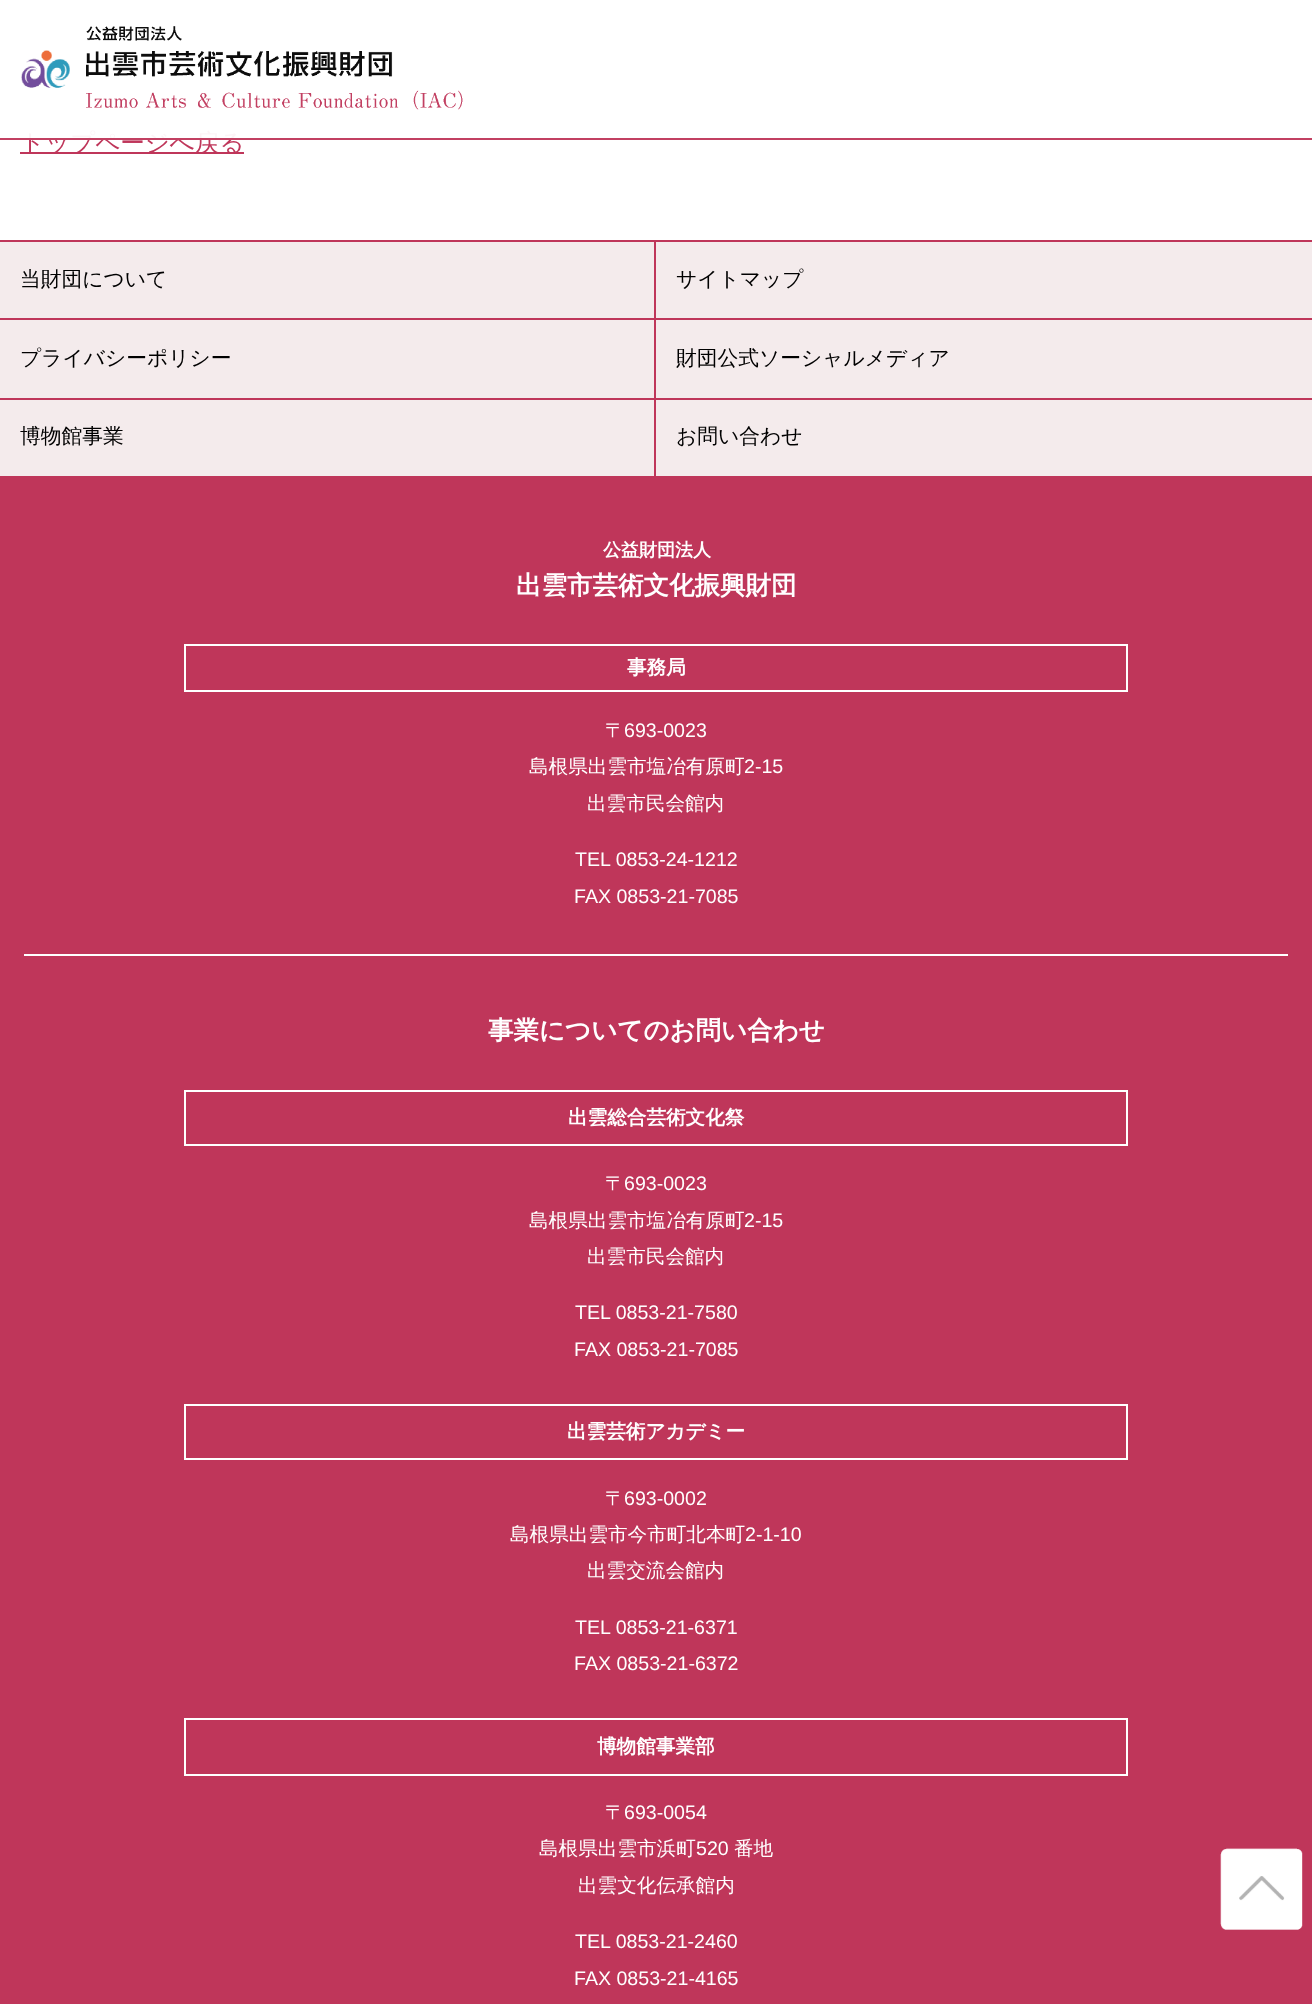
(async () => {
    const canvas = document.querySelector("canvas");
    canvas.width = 1312;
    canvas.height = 2004;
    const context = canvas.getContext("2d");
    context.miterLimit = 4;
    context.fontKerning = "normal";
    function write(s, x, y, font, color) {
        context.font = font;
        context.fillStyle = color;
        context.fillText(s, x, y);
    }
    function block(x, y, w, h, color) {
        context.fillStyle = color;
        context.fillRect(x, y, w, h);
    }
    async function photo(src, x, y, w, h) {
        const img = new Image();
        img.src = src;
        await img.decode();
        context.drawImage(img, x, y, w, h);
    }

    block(0, 0, 1312, 2004, "rgb(255, 255, 255)");
    block(20, 152, 224, 2, "rgb(191, 54, 90)");
    write("トップページへ戻る", 20, 151, "500 24.5px WenQuanYi Zen Hei", "rgb(191, 54, 90)");
    block(29, 130, 208, 10, "rgba(255, 255, 255, 0.95)");
    block(0, 138, 1312, 2, "rgba(191, 54, 90, 0.95)");
    await photo("media/1.png", 21, 26, 442, 84);
    block(0, 242, 1312, 234, "rgb(244, 235, 236)");
    block(0, 240, 1312, 2, "rgb(191, 54, 90)");
    block(654, 240, 2, 78, "rgb(191, 54, 90)");
    write("当財団について", 20, 286, "500 20.75px WenQuanYi Zen Hei", "rgb(0, 0, 0)");
    write("サイトマップ", 676, 286, "500 20.75px WenQuanYi Zen Hei", "rgb(0, 0, 0)");
    block(0, 318, 1312, 2, "rgb(191, 54, 90)");
    block(654, 318, 2, 80, "rgb(191, 54, 90)");
    write("プライバシーポリシー", 20, 365, "500 20.75px WenQuanYi Zen Hei", "rgb(0, 0, 0)");
    write("財団公式ソーシャルメディア", 676, 365, "500 20.75px WenQuanYi Zen Hei", "rgb(0, 0, 0)");
    block(0, 398, 1312, 2, "rgb(191, 54, 90)");
    block(654, 398, 2, 78, "rgb(191, 54, 90)");
    write("博物館事業", 20, 443, "500 20.75px WenQuanYi Zen Hei", "rgb(0, 0, 0)");
    write("お問い合わせ", 676, 443, "500 20.75px WenQuanYi Zen Hei", "rgb(0, 0, 0)");
    block(0, 476, 1312, 1528, "rgb(191, 54, 90)");
    block(24, 954, 1264, 2, "rgb(255, 255, 255)");
    write("公益財団法人", 603, 556, "bold 18px WenQuanYi Zen Hei", "rgb(255, 255, 255)");
    write("出雲市芸術文化振興財団", 516, 594, "bold 25.5px WenQuanYi Zen Hei", "rgb(255, 255, 255)");
    context.strokeStyle = "rgb(255, 255, 255)";
    context.lineWidth = 2;
    context.strokeRect(185, 645, 942, 46);
    write("事務局", 627, 674, "bold 19.6px WenQuanYi Zen Hei", "rgb(255, 255, 255)");
    write("〒", 605, 737, "500 19.6px WenQuanYi Zen Hei", "rgb(255, 255, 255)");
    write("693-0023", 624, 737, "19.6px Liberation Sans", "rgb(255, 255, 255)");
    write("島根県出雲市塩冶有原町", 529, 773, "500 19.6px WenQuanYi Zen Hei", "rgb(255, 255, 255)");
    write("2-15", 744, 773, "19.6px Liberation Sans", "rgb(255, 255, 255)");
    write("出雲市民会館内", 587, 810, "500 19.6px WenQuanYi Zen Hei", "rgb(255, 255, 255)");
    write("TEL 0853-24-1212", 575, 866, "19.6px Liberation Sans", "rgb(255, 255, 255)");
    write("FAX 0853-21-7085", 574, 903, "19.6px Liberation Sans", "rgb(255, 255, 255)");
    write("事業についてのお問い合わせ", 488, 1039, "bold 25.5px WenQuanYi Zen Hei", "rgb(255, 255, 255)");
    context.strokeRect(185, 1091, 942, 54);
    write("出雲総合芸術文化祭", 568, 1124, "bold 19.6px WenQuanYi Zen Hei", "rgb(255, 255, 255)");
    write("〒", 605, 1190, "500 19.6px WenQuanYi Zen Hei", "rgb(255, 255, 255)");
    write("693-0023", 624, 1190, "19.6px Liberation Sans", "rgb(255, 255, 255)");
    write("島根県出雲市塩冶有原町", 529, 1227, "500 19.6px WenQuanYi Zen Hei", "rgb(255, 255, 255)");
    write("2-15", 744, 1227, "19.6px Liberation Sans", "rgb(255, 255, 255)");
    write("出雲市民会館内", 587, 1263, "500 19.6px WenQuanYi Zen Hei", "rgb(255, 255, 255)");
    write("TEL 0853-21-7580", 575, 1319, "19.6px Liberation Sans", "rgb(255, 255, 255)");
    write("FAX 0853-21-7085", 574, 1356, "19.6px Liberation Sans", "rgb(255, 255, 255)");
    context.strokeRect(185, 1405, 942, 54);
    write("出雲芸術アカデミー", 567, 1438, "bold 19.6px WenQuanYi Zen Hei", "rgb(255, 255, 255)");
    write("〒", 605, 1505, "500 19.6px WenQuanYi Zen Hei", "rgb(255, 255, 255)");
    write("693-0002", 624, 1505, "19.6px Liberation Sans", "rgb(255, 255, 255)");
    write("島根県出雲市今市町北本町", 510, 1541, "500 19.6px WenQuanYi Zen Hei", "rgb(255, 255, 255)");
    write("2-1-10", 745, 1541, "19.6px Liberation Sans", "rgb(255, 255, 255)");
    write("出雲交流会館内", 587, 1577, "500 19.6px WenQuanYi Zen Hei", "rgb(255, 255, 255)");
    write("TEL 0853-21-6371", 575, 1634, "19.6px Liberation Sans", "rgb(255, 255, 255)");
    write("FAX 0853-21-6372", 574, 1670, "19.6px Liberation Sans", "rgb(255, 255, 255)");
    context.strokeRect(185, 1719, 942, 56);
    write("博物館事業部", 597, 1753, "bold 19.6px WenQuanYi Zen Hei", "rgb(255, 255, 255)");
    write("〒", 605, 1819, "500 19.6px WenQuanYi Zen Hei", "rgb(255, 255, 255)");
    write("693-0054", 624, 1819, "19.6px Liberation Sans", "rgb(255, 255, 255)");
    write("島根県出雲市浜町", 539, 1855, "500 19.6px WenQuanYi Zen Hei", "rgb(255, 255, 255)");
    write("520", 696, 1855, "19.6px Liberation Sans", "rgb(255, 255, 255)");
    write("番地", 734, 1855, "500 19.6px WenQuanYi Zen Hei", "rgb(255, 255, 255)");
    write("出雲文化伝承館内", 578, 1892, "500 19.6px WenQuanYi Zen Hei", "rgb(255, 255, 255)");
    write("TEL 0853-21-2460", 575, 1948, "19.6px Liberation Sans", "rgb(255, 255, 255)");
    write("FAX 0853-21-4165", 574, 1985, "19.6px Liberation Sans", "rgb(255, 255, 255)");
    await photo("media/2.png", 1220, 1848, 83, 82);
})();
